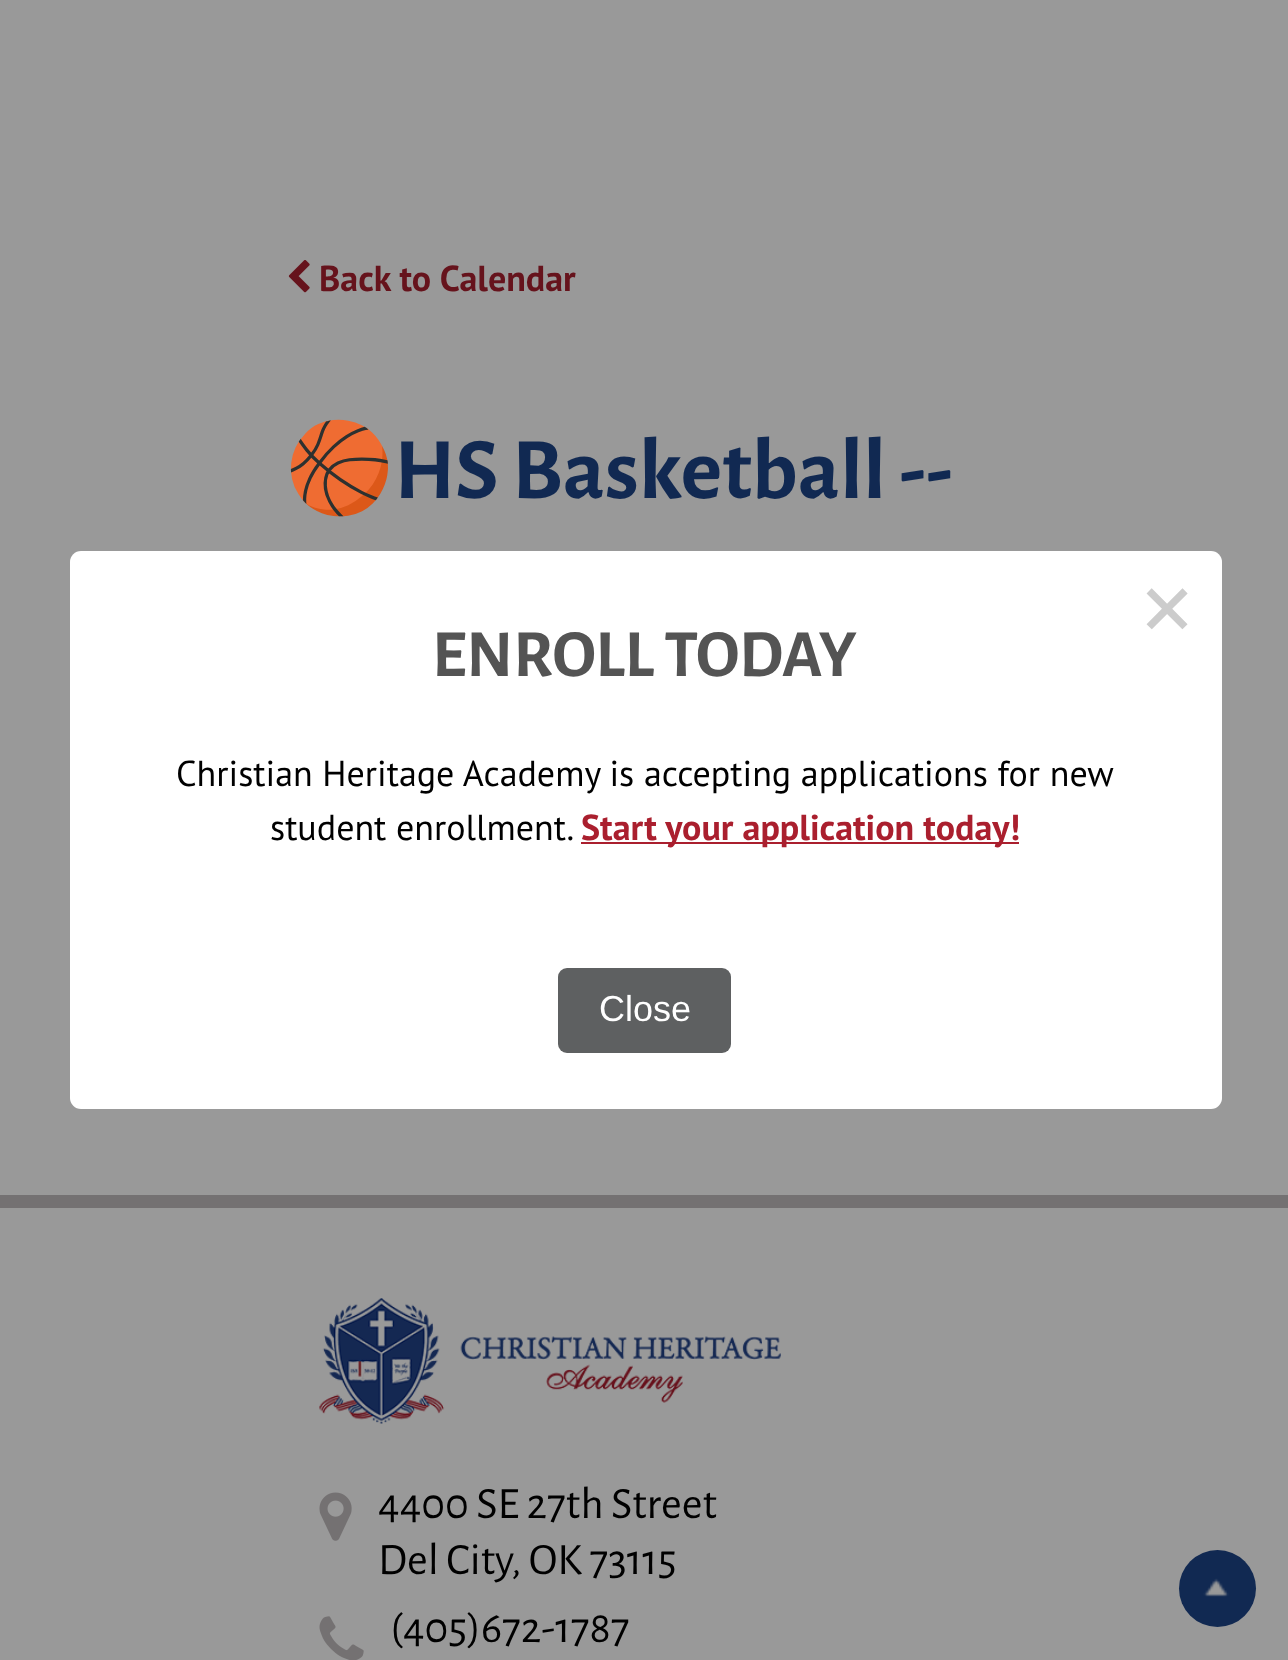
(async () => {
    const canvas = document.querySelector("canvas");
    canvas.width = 1288;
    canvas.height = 1660;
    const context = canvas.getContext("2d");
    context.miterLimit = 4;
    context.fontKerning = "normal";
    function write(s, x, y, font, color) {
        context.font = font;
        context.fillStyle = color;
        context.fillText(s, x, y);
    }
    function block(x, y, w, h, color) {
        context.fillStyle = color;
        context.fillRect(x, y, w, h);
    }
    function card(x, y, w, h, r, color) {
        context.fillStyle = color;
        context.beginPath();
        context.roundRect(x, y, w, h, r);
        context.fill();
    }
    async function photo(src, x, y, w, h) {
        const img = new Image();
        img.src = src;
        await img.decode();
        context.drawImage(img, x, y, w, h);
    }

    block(0, 0, 1288, 1660, "rgb(153, 153, 153)");
    await photo("media/1.png", 288, 260, 22, 33);
    write("Back to Calendar", 319, 291, "bold 36px PT Sans", "rgb(102, 19, 28)");
    write("🏀", 285, 498, "bold 87.75px Noto Color Emoji", "rgb(17, 41, 82)");
    write("HS Basketball --", 394, 498, "bold 87.75px Alegreya Sans", "rgb(17, 41, 82)");
    block(0, 1195, 1288, 13, "rgb(116, 113, 114)");
    await photo("media/2.png", 319, 1298, 462, 126);
    await photo("media/3.png", 319, 1492, 33, 49);
    write("4400 SE 27th Street", 378, 1518, "45px Alegreya Sans", "rgb(0, 0, 0)");
    write("Del City, OK 73115", 378, 1574, "45px Alegreya Sans", "rgb(0, 0, 0)");
    await photo("media/4.png", 319, 1616, 45, 44);
    write("(405)672-1787", 390, 1642, "45px Alegreya Sans", "rgb(0, 0, 0)");
    context.fillStyle = "rgb(17, 41, 82)";
    context.beginPath();
    context.arc(1217.5, 1588.5, 38.5, 0, Math.PI * 2);
    context.fill();
    await photo("media/5.png", 1203, 1578, 26, 19);
    card(70, 551, 1152, 558, 11, "rgb(255, 255, 255)");
    write("×", 1140, 637, "90px DejaVu Sans Mono", "rgb(204, 204, 204)");
    write("ENROLL TODAY", 432, 676, "bold 67.5px Alegreya Sans", "rgb(84, 84, 84)");
    write("Christian Heritage Academy is accepting applications for new", 176, 786, "36px PT Sans", "rgb(0, 0, 0)");
    write("student enrollment.", 270, 840, "36px PT Sans", "rgb(0, 0, 0)");
    block(581, 842, 438, 2, "rgb(170, 31, 46)");
    write("Start your application today!", 581, 840, "bold 36px PT Sans", "rgb(170, 31, 46)");
    card(558, 968, 173, 85, 9, "rgb(94, 96, 97)");
    write("Close", 599, 1021, "36px Liberation Sans", "rgb(255, 255, 255)");
})();
